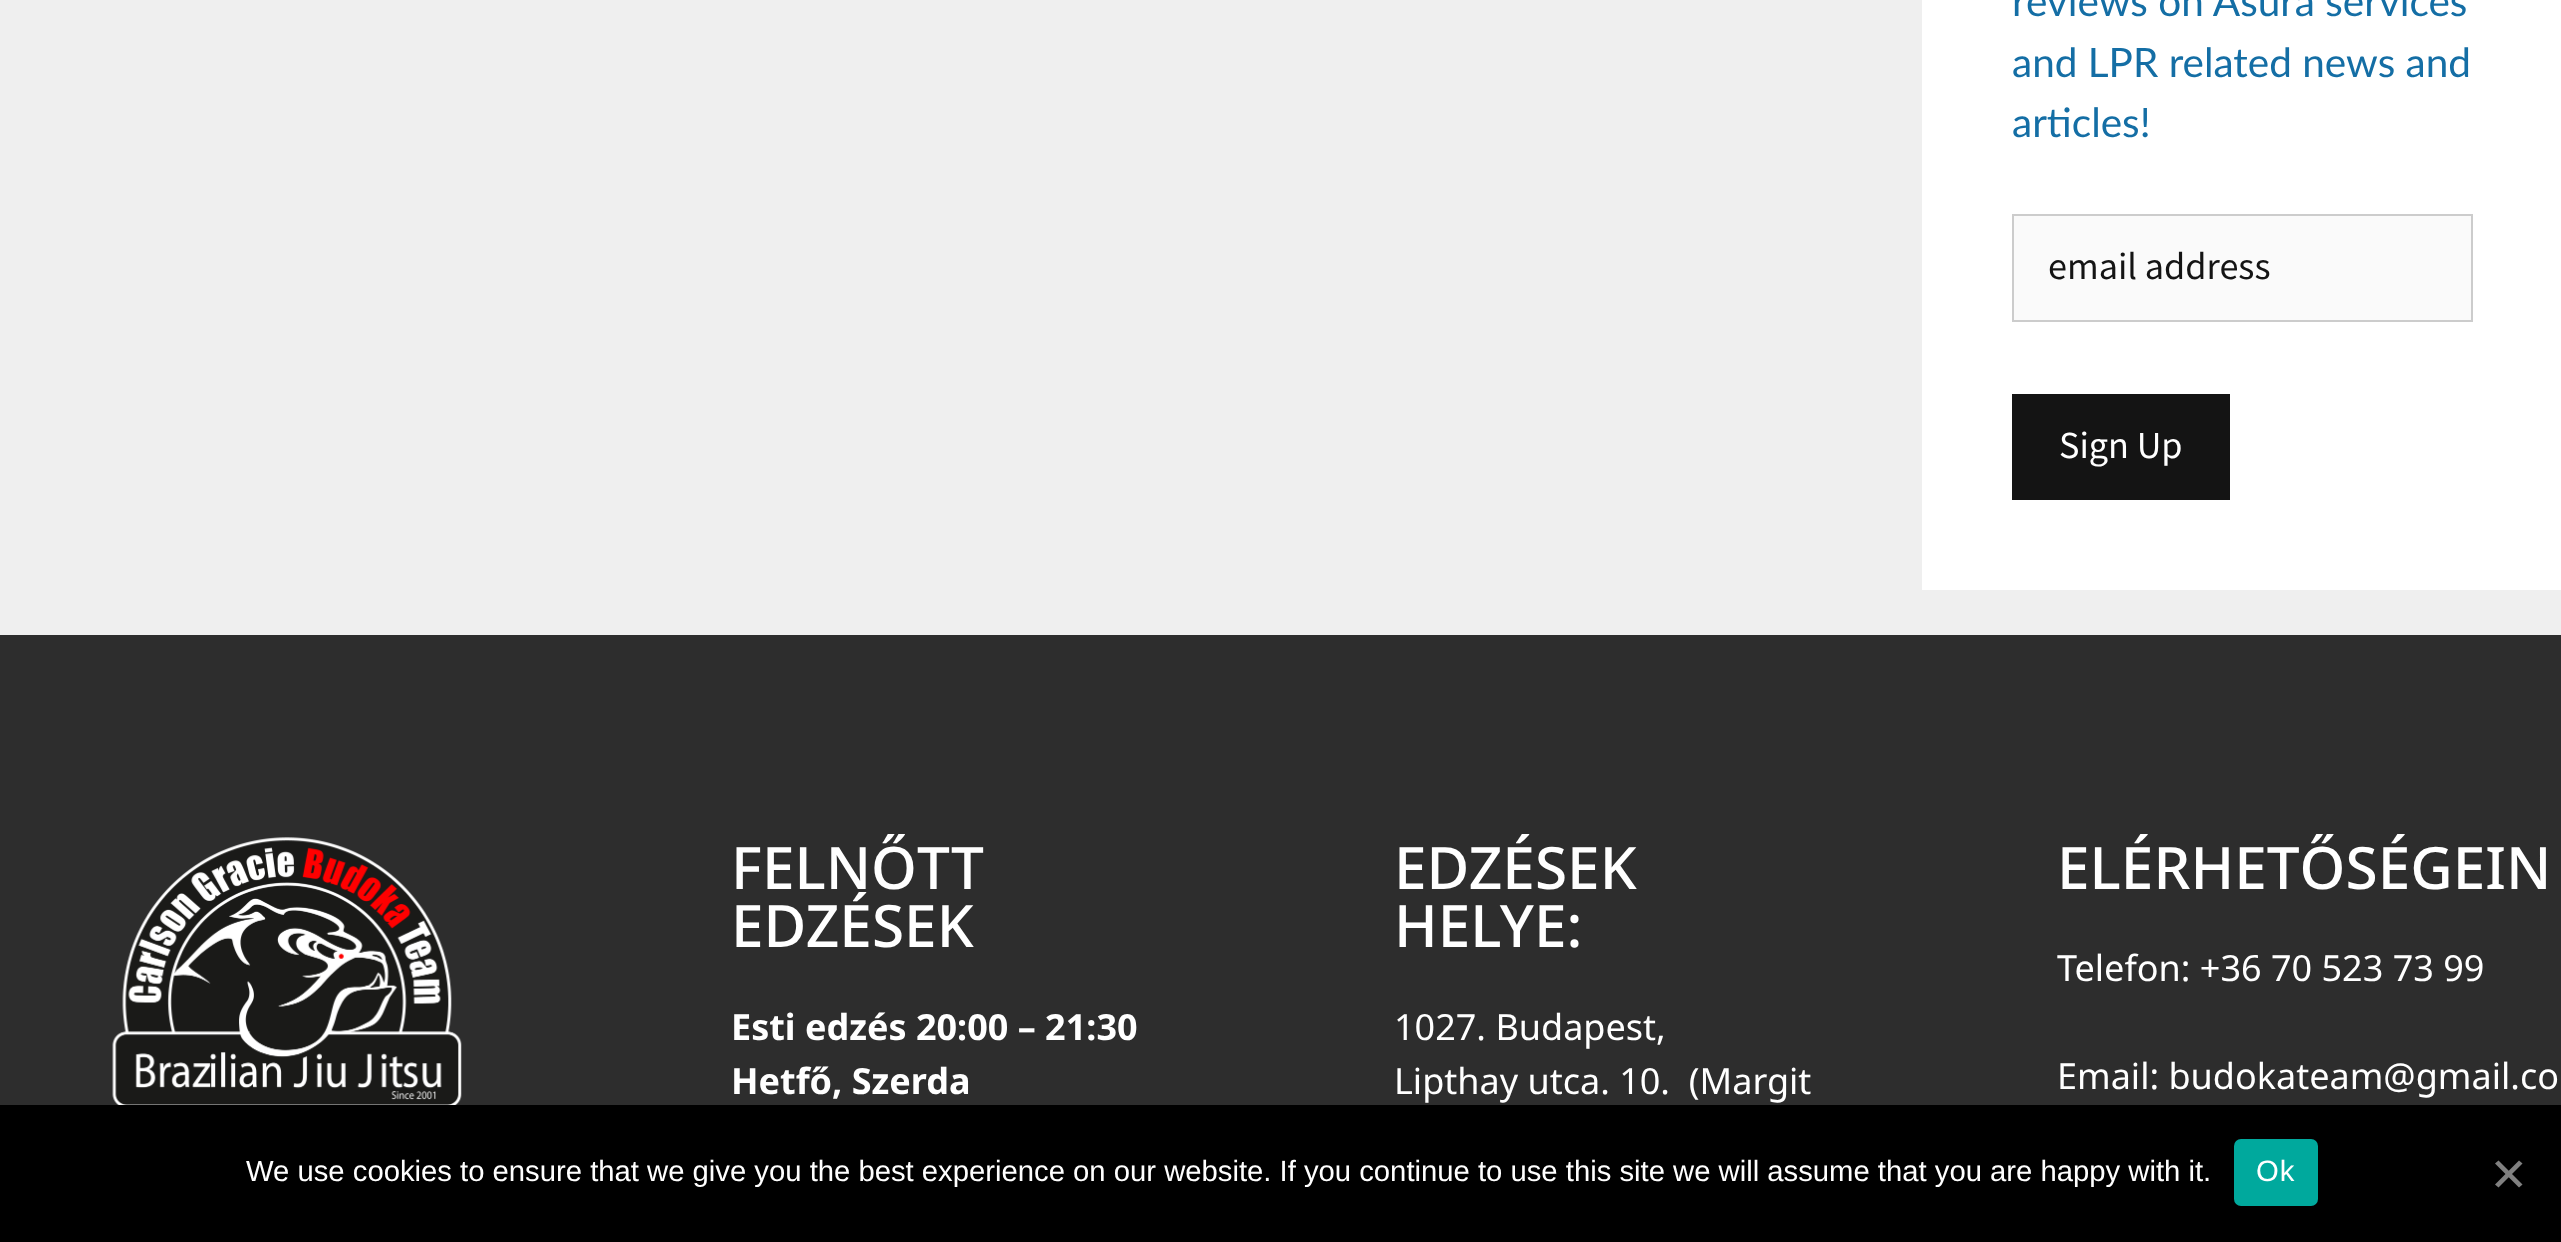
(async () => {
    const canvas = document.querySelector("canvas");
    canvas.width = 2561;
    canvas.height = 1242;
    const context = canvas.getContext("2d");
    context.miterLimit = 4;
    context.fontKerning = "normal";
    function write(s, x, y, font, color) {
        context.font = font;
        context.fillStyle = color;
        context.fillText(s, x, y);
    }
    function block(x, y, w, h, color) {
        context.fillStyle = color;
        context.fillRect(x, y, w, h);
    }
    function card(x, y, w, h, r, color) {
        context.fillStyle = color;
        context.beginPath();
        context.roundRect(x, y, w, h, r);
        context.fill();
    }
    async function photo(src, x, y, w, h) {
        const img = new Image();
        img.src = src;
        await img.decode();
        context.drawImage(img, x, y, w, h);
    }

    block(0, 0, 2561, 1242, "rgb(239, 239, 239)");
    block(1922, 0, 639, 590, "rgb(255, 255, 255)");
    write("reviews on Asura services", 2012, 16, "40.5px Lato", "rgb(20, 110, 165)");
    write("and LPR related news and", 2012, 77, "40.5px Lato", "rgb(20, 110, 165)");
    write("articles!", 2012, 137, "40.5px Lato", "rgb(20, 110, 165)");
    context.fillStyle = "rgb(250, 250, 250)";
    context.beginPath();
    context.rect(2013, 215, 459, 106);
    context.fill();
    context.strokeStyle = "rgb(204, 204, 204)";
    context.lineWidth = 2;
    context.stroke();
    write("email address", 2048, 279, "38.25px Source Sans Pro", "rgb(20, 20, 20)");
    block(2012, 394, 218, 106, "rgb(20, 20, 20)");
    write("Sign Up", 2059, 458, "38.25px Source Sans Pro", "rgb(255, 255, 255)");
    block(0, 635, 2561, 470, "rgb(45, 45, 45)");
    await photo("media/1.png", 112, 837, 350, 268);
    write("FELNŐTT", 731, 889, "500 58.5px Noto Sans", "rgb(255, 255, 255)");
    write("EDZÉSEK", 731, 947, "500 58.5px Noto Sans", "rgb(255, 255, 255)");
    write("Esti edzés 20:00 – 21:30", 731, 1040, "bold 36px Noto Sans", "rgb(255, 255, 255)");
    write("Hetfő, Szerda", 731, 1094, "bold 36px Noto Sans", "rgb(255, 255, 255)");
    write("EDZÉSEK", 1394, 889, "500 58.5px Noto Sans", "rgb(255, 255, 255)");
    write("HELYE:", 1394, 947, "500 58.5px Noto Sans", "rgb(255, 255, 255)");
    write("1027. Budapest,", 1394, 1040, "36px Noto Sans", "rgb(255, 255, 255)");
    write("Lipthay utca. 10.  (Margit", 1394, 1094, "36px Noto Sans", "rgb(255, 255, 255)");
    write("ELÉRHETŐSÉGEIN", 2057, 889, "500 58.5px Noto Sans", "rgb(255, 255, 255)");
    write("Telefon: +36 70 523 73 99", 2057, 981, "36px Noto Sans", "rgb(255, 255, 255)");
    write("Email: budokateam@gmail.co", 2057, 1089, "36px Noto Sans", "rgb(255, 255, 255)");
    block(0, 1105, 2561, 137, "rgb(0, 0, 0)");
    write("We use cookies to ensure that we give you the best experience on our website. If you continue to use this site we will assume that you are happy with it.", 246, 1181, "29.25px Liberation Sans", "rgb(255, 255, 255)");
    card(2234, 1139, 84, 67, 7, "rgb(0, 169, 157)");
    context.letterSpacing = "1px";
    write("Ok", 2256, 1181, "29.25px Liberation Sans", "rgb(255, 255, 255)");
    context.fillStyle = "rgb(128, 128, 128)";
    context.beginPath();
    context.moveTo(2519, 1160.5);
    context.lineTo(2522.5, 1163.5);
    context.lineTo(2498.5, 1187.5);
    context.lineTo(2495, 1184.5);
    context.closePath();
    context.fill();
    context.beginPath();
    context.moveTo(2495, 1163.5);
    context.lineTo(2498.5, 1160.5);
    context.lineTo(2522.5, 1184.5);
    context.lineTo(2519, 1187.5);
    context.closePath();
    context.fill();
})();
